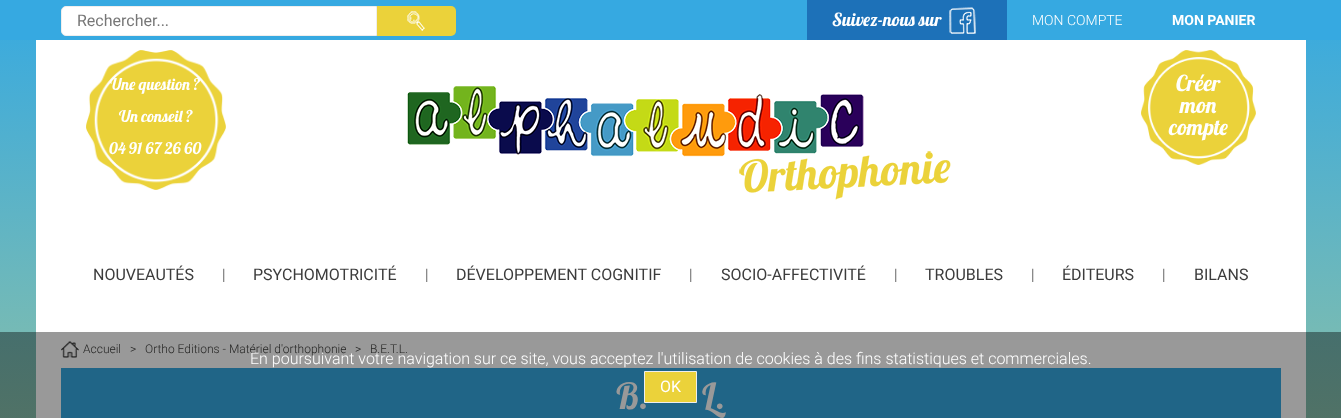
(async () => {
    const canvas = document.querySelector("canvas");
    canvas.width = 1341;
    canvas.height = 418;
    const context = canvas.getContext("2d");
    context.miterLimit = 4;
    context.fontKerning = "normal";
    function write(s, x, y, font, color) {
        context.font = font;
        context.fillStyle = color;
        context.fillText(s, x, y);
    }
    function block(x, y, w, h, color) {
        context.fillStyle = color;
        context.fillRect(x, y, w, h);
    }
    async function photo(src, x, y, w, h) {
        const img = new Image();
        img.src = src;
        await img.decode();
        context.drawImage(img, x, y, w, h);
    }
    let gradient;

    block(0, 0, 1341, 418, "rgb(255, 255, 255)");
    gradient = context.createLinearGradient(670, 0, 671, 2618);
    gradient.addColorStop(0, "rgb(54, 169, 225)");
    gradient.addColorStop(0.37, "rgb(239, 219, 98)");
    context.fillStyle = gradient;
    context.fillRect(0, 40, 1341, 292);
    gradient = context.createLinearGradient(670, 0, 671, 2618);
    gradient.addColorStop(0, "rgb(32, 101, 135)");
    gradient.addColorStop(0.37, "rgb(143, 131, 59)");
    context.fillStyle = gradient;
    context.fillRect(0, 332, 1341, 86);
    block(0, 0, 1341, 40, "rgb(54, 169, 225)");
    block(807, 0, 200, 40, "rgb(29, 113, 184)");
    await photo("media/1.png", 949, 7, 27, 27);
    write("Suivez-nous sur", 832, 26, "18px Lobster", "rgb(255, 255, 255)");
    write("MON COMPTE", 1032, 25, "300 14px Roboto", "rgb(255, 255, 255)");
    write("MON PANIER", 1172, 25, "bold 14px Roboto", "rgb(255, 255, 255)");
    block(36, 40, 1270, 292, "rgb(255, 255, 255)");
    block(36, 332, 1270, 86, "rgb(153, 153, 153)");
    context.fillStyle = "rgb(255, 255, 255)";
    context.beginPath();
    context.roundRect(61.5, 6.5, 315, 29, [4.5, 0, 0, 4.5]);
    context.fill();
    context.strokeStyle = "rgb(239, 238, 237)";
    context.stroke();
    write("Rechercher...", 77, 26, "16px Roboto", "rgb(119, 119, 119)");
    context.fillStyle = "rgb(235, 210, 58)";
    context.beginPath();
    context.roundRect(377, 6, 79, 30, [0, 5, 5, 0]);
    context.fill();
    await photo("media/2.png", 407, 11, 18, 20);
    await photo("media/3.png", 407, 86, 544, 114);
    write("NOUVEAUTÉS", 93, 280, "16px Roboto", "rgb(60, 60, 60)");
    write("|", 222, 280, "300 16px Roboto", "rgb(60, 60, 60)");
    write("PSYCHOMOTRICITÉ", 253, 280, "16px Roboto", "rgb(60, 60, 60)");
    write("|", 425, 280, "300 16px Roboto", "rgb(60, 60, 60)");
    write("DÉVELOPPEMENT COGNITIF", 456, 280, "16px Roboto", "rgb(60, 60, 60)");
    write("|", 689, 280, "300 16px Roboto", "rgb(60, 60, 60)");
    write("SOCIO-AFFECTIVITÉ", 721, 280, "16px Roboto", "rgb(60, 60, 60)");
    write("|", 894, 280, "300 16px Roboto", "rgb(60, 60, 60)");
    write("TROUBLES", 925, 280, "16px Roboto", "rgb(60, 60, 60)");
    write("|", 1031, 280, "300 16px Roboto", "rgb(60, 60, 60)");
    write("ÉDITEURS", 1062, 280, "16px Roboto", "rgb(60, 60, 60)");
    write("|", 1162, 280, "300 16px Roboto", "rgb(60, 60, 60)");
    write("BILANS", 1194, 280, "16px Roboto", "rgb(60, 60, 60)");
    await photo("media/4.png", 61, 341, 18, 17);
    write("Accueil", 83, 353, "300 12px Roboto", "rgb(36, 36, 35)");
    write(">", 130, 353, "300 12px Roboto", "rgb(36, 36, 35)");
    write("Ortho Editions - Matériel d'orthophonie", 145, 353, "300 12px Roboto", "rgb(36, 36, 35)");
    write(">", 355, 353, "300 12px Roboto", "rgb(36, 36, 35)");
    write("B.E.T.L.", 370, 353, "300 12px Roboto", "rgb(36, 36, 35)");
    block(61, 368, 1220, 50, "rgb(32, 101, 135)");
    write("B.", 616, 409, "36px Lobster", "rgb(153, 153, 153)");
    write("L.", 702, 409, "36px Lobster", "rgb(153, 153, 153)");
    await photo("media/5.png", 86, 50, 140, 140);
    write("Une question ?", 110, 90, "16px Lobster", "rgb(255, 255, 255)");
    write("Un conseil ?", 119, 122, "16px Lobster", "rgb(255, 255, 255)");
    write("04 91 67 26 60", 109, 154, "16px Lobster", "rgb(255, 255, 255)");
    await photo("media/6.png", 1141, 50, 115, 115);
    write("Créer", 1176, 91, "22px Lobster", "rgb(255, 255, 255)");
    write("mon", 1180, 113, "22px Lobster", "rgb(255, 255, 255)");
    write("compte", 1169, 135, "22px Lobster", "rgb(255, 255, 255)");
    write("En poursuivant votre navigation sur ce site, vous acceptez l'utilisation de cookies à des fins statistiques et commerciales.", 250, 364, "300 16px Roboto", "rgb(255, 255, 255)");
    context.fillStyle = "rgb(235, 210, 58)";
    context.beginPath();
    context.rect(644.5, 371.5, 52, 31);
    context.fill();
    context.stroke();
    write("OK", 660, 392, "16px Roboto", "rgb(255, 255, 255)");
})();
